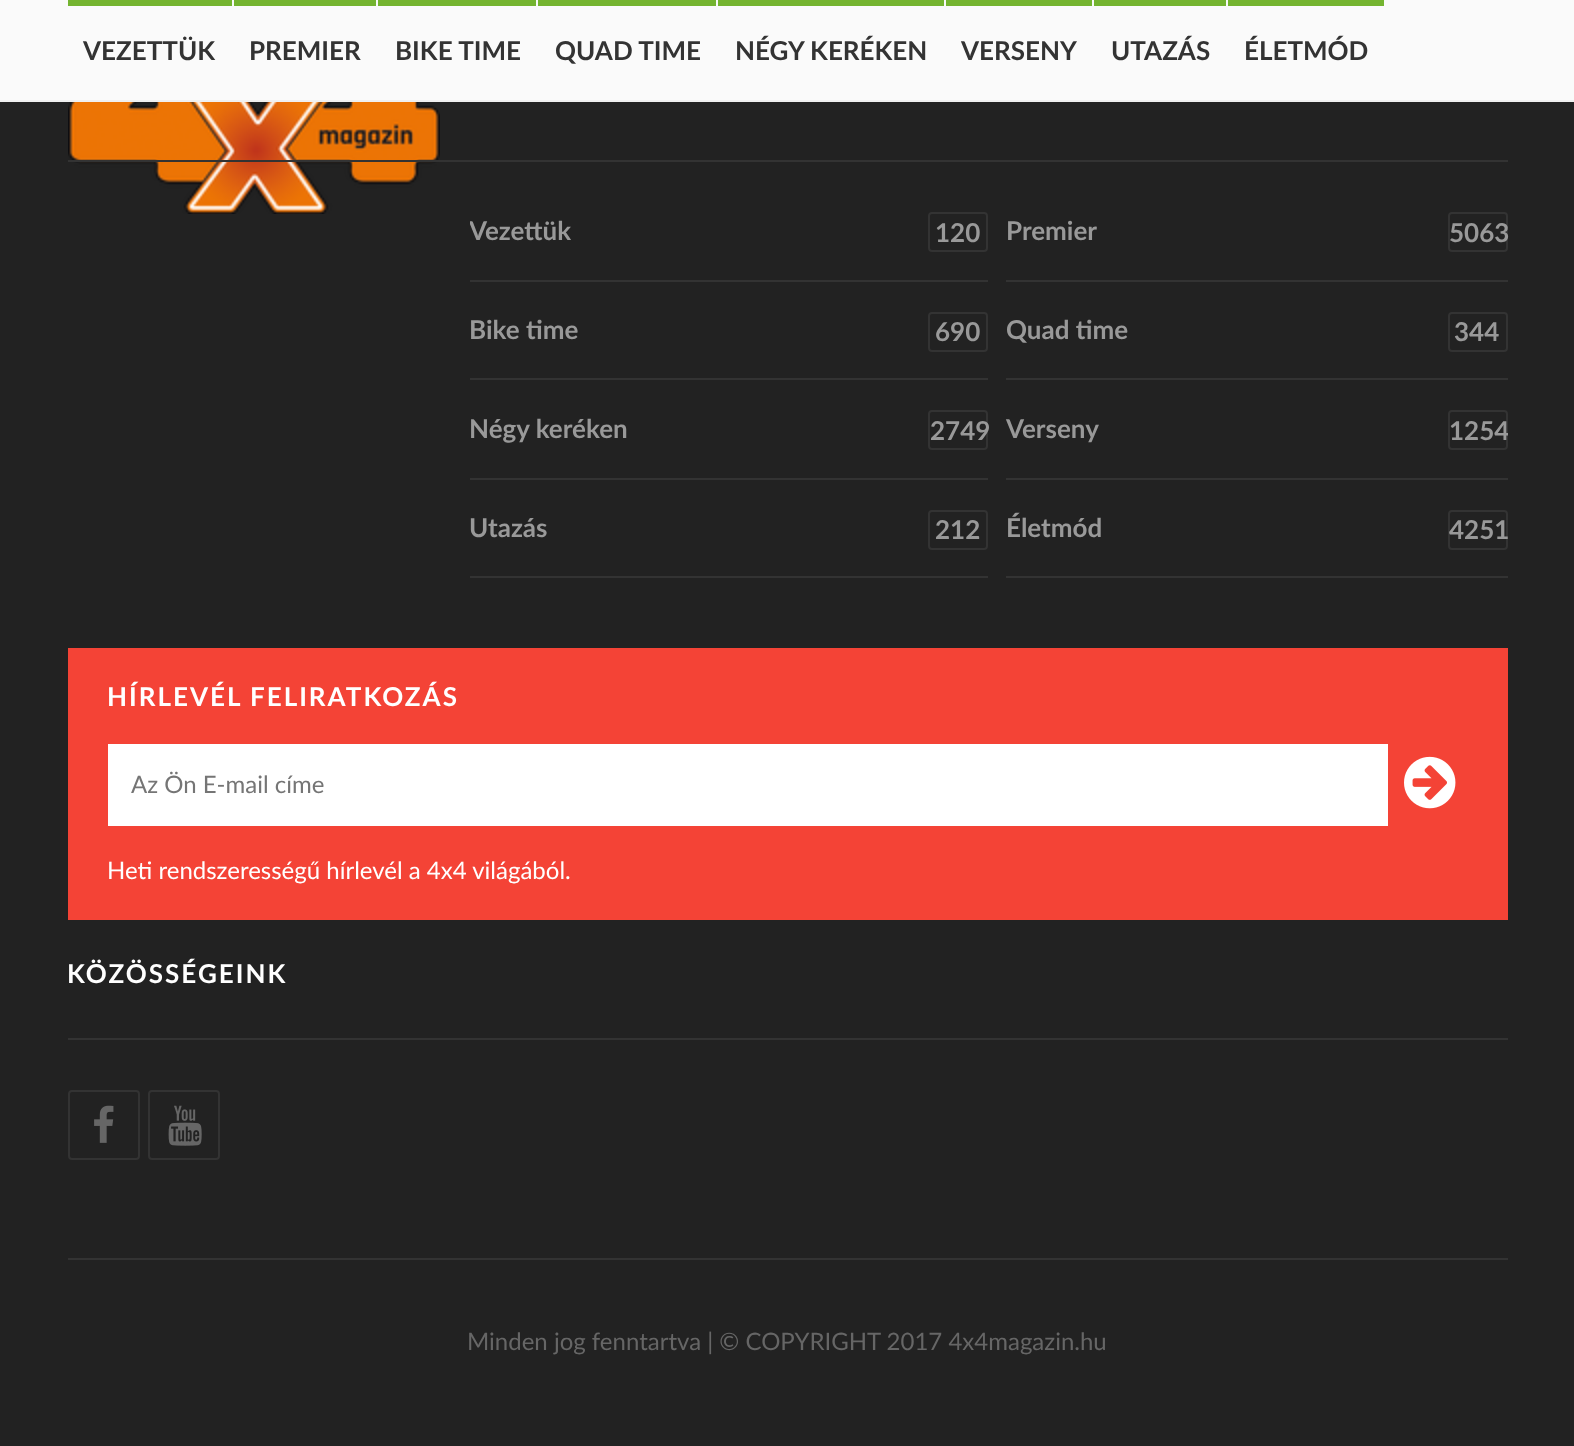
(async () => {
    const canvas = document.querySelector("canvas");
    canvas.width = 1574;
    canvas.height = 1446;
    const context = canvas.getContext("2d");
    context.miterLimit = 4;
    context.fontKerning = "normal";
    function write(s, x, y, font, color) {
        context.font = font;
        context.fillStyle = color;
        context.fillText(s, x, y);
    }
    function block(x, y, w, h, color) {
        context.fillStyle = color;
        context.fillRect(x, y, w, h);
    }
    async function photo(src, x, y, w, h) {
        const img = new Image();
        img.src = src;
        await img.decode();
        context.drawImage(img, x, y, w, h);
    }

    block(0, 0, 1574, 1446, "rgb(34, 34, 34)");
    block(0, 0, 1574, 100, "rgb(250, 250, 250)");
    block(0, 100, 1574, 2, "rgb(240, 240, 240)");
    block(68, 0, 164, 6, "rgb(116, 180, 48)");
    write("VEZETTÜK", 83, 60, "bold 26px Lato", "rgb(51, 51, 51)");
    block(234, 0, 142, 6, "rgb(116, 180, 48)");
    write("PREMIER", 249, 60, "bold 26px Lato", "rgb(51, 51, 51)");
    block(378, 0, 158, 6, "rgb(116, 180, 48)");
    write("BIKE TIME", 395, 60, "bold 26px Lato", "rgb(51, 51, 51)");
    block(538, 0, 178, 6, "rgb(116, 180, 48)");
    write("QUAD TIME", 555, 60, "bold 26px Lato", "rgb(51, 51, 51)");
    block(718, 0, 226, 6, "rgb(116, 180, 48)");
    write("NÉGY KERÉKEN", 735, 60, "bold 26px Lato", "rgb(51, 51, 51)");
    block(946, 0, 146, 6, "rgb(116, 180, 48)");
    write("VERSENY", 961, 60, "bold 26px Lato", "rgb(51, 51, 51)");
    block(1094, 0, 132, 6, "rgb(116, 180, 48)");
    write("UTAZÁS", 1111, 60, "bold 26px Lato", "rgb(51, 51, 51)");
    block(1228, 0, 156, 6, "rgb(116, 180, 48)");
    write("ÉLETMÓD", 1244, 60, "bold 26px Lato", "rgb(51, 51, 51)");
    await photo("media/1.png", 68, 102, 372, 112);
    block(68, 160, 1440, 2, "rgb(51, 51, 51)");
    block(470, 280, 518, 2, "rgb(51, 51, 51)");
    context.save();
    context.beginPath();
    context.rect(470, 212, 1038, 396);
    context.clip();
    write("Vezettük", 469, 240, "bold 26px Lato", "rgb(153, 153, 153)");
    context.restore();
    context.beginPath();
    context.roundRect(929, 213, 58, 38, 3);
    context.strokeStyle = "rgb(51, 51, 51)";
    context.lineWidth = 2;
    context.stroke();
    write("120", 935, 242, "bold 26px Lato", "rgb(153, 153, 153)");
    block(1006, 280, 502, 2, "rgb(51, 51, 51)");
    write("Premier", 1006, 240, "bold 26px Lato", "rgb(153, 153, 153)");
    context.beginPath();
    context.roundRect(1449, 213, 58, 38, 3);
    context.stroke();
    write("5063", 1449, 242, "bold 26px Lato", "rgb(153, 153, 153)");
    block(470, 378, 518, 2, "rgb(51, 51, 51)");
    write("Bike time", 469, 339, "bold 26px Lato", "rgb(153, 153, 153)");
    context.beginPath();
    context.roundRect(929, 313, 58, 38, 3);
    context.stroke();
    write("690", 935, 341, "bold 26px Lato", "rgb(153, 153, 153)");
    block(1006, 378, 502, 2, "rgb(51, 51, 51)");
    write("Quad time", 1006, 339, "bold 26px Lato", "rgb(153, 153, 153)");
    context.beginPath();
    context.roundRect(1449, 313, 58, 38, 3);
    context.stroke();
    write("344", 1454, 341, "bold 26px Lato", "rgb(153, 153, 153)");
    block(470, 478, 518, 2, "rgb(51, 51, 51)");
    write("Négy keréken", 469, 438, "bold 26px Lato", "rgb(153, 153, 153)");
    context.beginPath();
    context.roundRect(929, 411, 58, 38, 3);
    context.stroke();
    write("2749", 930, 440, "bold 26px Lato", "rgb(153, 153, 153)");
    block(1006, 478, 502, 2, "rgb(51, 51, 51)");
    write("Verseny", 1006, 438, "bold 26px Lato", "rgb(153, 153, 153)");
    context.beginPath();
    context.roundRect(1449, 411, 58, 38, 3);
    context.stroke();
    context.save();
    context.beginPath();
    context.rect(470, 212, 1038, 396);
    context.clip();
    write("1254", 1449, 440, "bold 26px Lato", "rgb(153, 153, 153)");
    context.restore();
    block(470, 576, 518, 2, "rgb(51, 51, 51)");
    write("Utazás", 469, 537, "bold 26px Lato", "rgb(153, 153, 153)");
    context.beginPath();
    context.roundRect(929, 511, 58, 38, 3);
    context.stroke();
    write("212", 935, 539, "bold 26px Lato", "rgb(153, 153, 153)");
    block(1006, 576, 502, 2, "rgb(51, 51, 51)");
    write("Életmód", 1006, 537, "bold 26px Lato", "rgb(153, 153, 153)");
    context.beginPath();
    context.roundRect(1449, 511, 58, 38, 3);
    context.stroke();
    write("4251", 1449, 539, "bold 26px Lato", "rgb(153, 153, 153)");
    block(68, 648, 1440, 272, "rgb(244, 67, 54)");
    context.letterSpacing = "2px";
    write("HÍRLEVÉL FELIRATKOZÁS", 107, 706, "bold 26px Lato", "rgb(255, 255, 255)");
    block(108, 744, 1280, 82, "rgb(255, 255, 255)");
    context.letterSpacing = "0px";
    write("Az Ön E-mail címe", 131, 793, "24px Lato", "rgb(117, 117, 117)");
    await photo("media/2.png", 1404, 756, 52, 53);
    write("Heti rendszerességű hírlevél a 4x4 világából.", 107, 879, "24px Lato", "rgb(255, 255, 255)");
    block(68, 1038, 1440, 2, "rgb(51, 51, 51)");
    context.letterSpacing = "2px";
    write("KÖZÖSSÉGEINK", 67, 983, "bold 26px Lato", "rgb(255, 255, 255)");
    context.beginPath();
    context.roundRect(69, 1091, 70, 68, 3);
    context.stroke();
    await photo("media/3.png", 94, 1105, 20, 38);
    context.beginPath();
    context.roundRect(149, 1091, 70, 68, 3);
    context.stroke();
    await photo("media/4.png", 168, 1105, 34, 41);
    block(68, 1258, 1440, 2, "rgb(51, 51, 51)");
    context.letterSpacing = "0px";
    write("Minden jog fenntartva | © COPYRIGHT 2017 4x4magazin.hu", 467, 1350, "24px Lato", "rgb(102, 102, 102)");
})();
